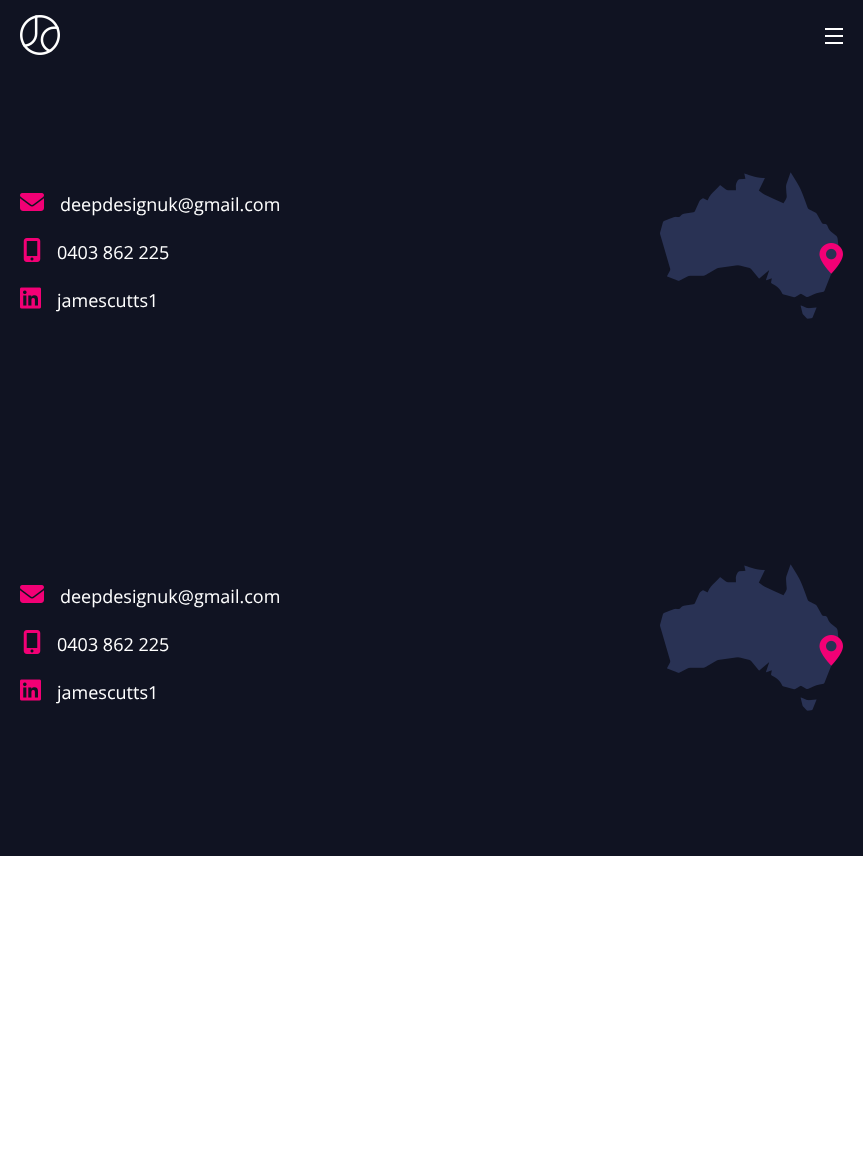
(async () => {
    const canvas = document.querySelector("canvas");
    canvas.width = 863;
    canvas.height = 1162;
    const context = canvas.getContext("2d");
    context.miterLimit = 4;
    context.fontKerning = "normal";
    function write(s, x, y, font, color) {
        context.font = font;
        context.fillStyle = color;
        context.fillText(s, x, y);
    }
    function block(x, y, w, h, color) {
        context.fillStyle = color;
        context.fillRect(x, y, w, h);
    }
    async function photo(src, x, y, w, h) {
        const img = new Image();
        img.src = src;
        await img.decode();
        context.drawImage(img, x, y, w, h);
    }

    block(0, 0, 863, 1162, "rgb(255, 255, 255)");
    block(0, 0, 863, 856, "rgb(16, 19, 34)");
    await photo("media/1.png", 20, 15, 40, 40);
    block(825, 35, 18, 2, "rgb(255, 255, 255)");
    block(825, 28, 18, 2, "rgb(255, 255, 255)");
    block(825, 42, 18, 2, "rgb(255, 255, 255)");
    await photo("media/2.png", 20, 193, 24, 18);
    write("deepdesignuk@gmail.com", 60, 211, "18px Open Sans", "rgb(255, 255, 255)");
    await photo("media/3.png", 23, 238, 18, 24);
    write("0403 862 225", 57, 259, "18px Open Sans", "rgb(255, 255, 255)");
    await photo("media/4.png", 20, 287, 21, 22);
    write("jamescutts1", 57, 307, "18px Open Sans", "rgb(255, 255, 255)");
    await photo("media/5.png", 660, 172, 183, 147);
    await photo("media/2.png", 20, 585, 24, 18);
    write("deepdesignuk@gmail.com", 60, 603, "18px Open Sans", "rgb(255, 255, 255)");
    await photo("media/3.png", 23, 630, 18, 24);
    write("0403 862 225", 57, 651, "18px Open Sans", "rgb(255, 255, 255)");
    await photo("media/4.png", 20, 679, 21, 22);
    write("jamescutts1", 57, 699, "18px Open Sans", "rgb(255, 255, 255)");
    await photo("media/5.png", 660, 564, 183, 147);
})();
